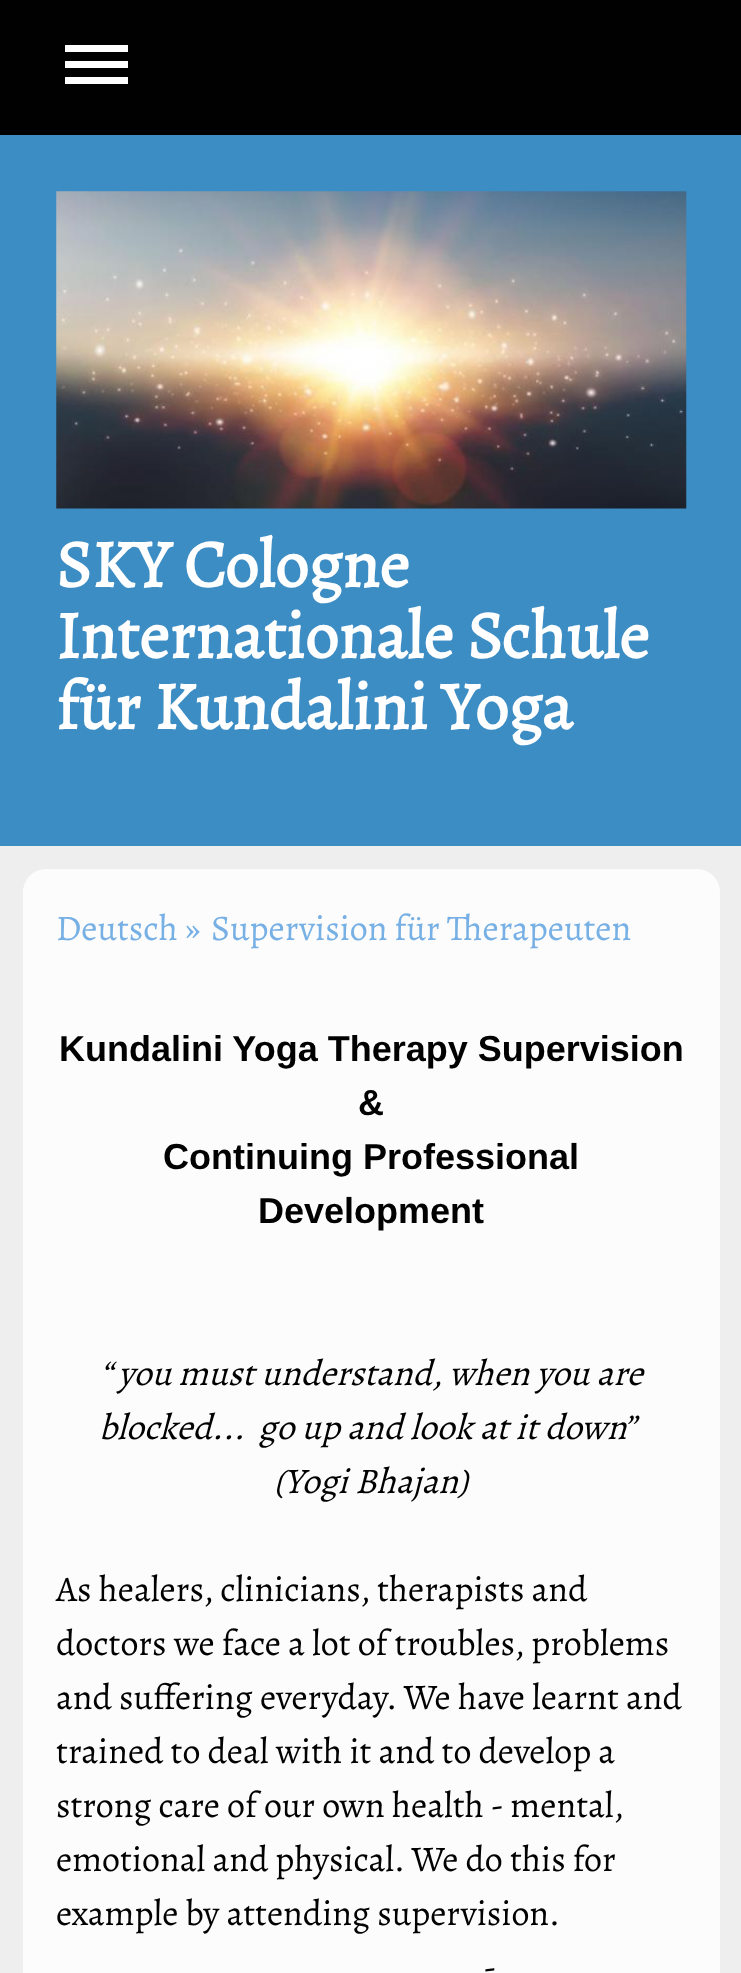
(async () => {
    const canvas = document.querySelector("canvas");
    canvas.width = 741;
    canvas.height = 1973;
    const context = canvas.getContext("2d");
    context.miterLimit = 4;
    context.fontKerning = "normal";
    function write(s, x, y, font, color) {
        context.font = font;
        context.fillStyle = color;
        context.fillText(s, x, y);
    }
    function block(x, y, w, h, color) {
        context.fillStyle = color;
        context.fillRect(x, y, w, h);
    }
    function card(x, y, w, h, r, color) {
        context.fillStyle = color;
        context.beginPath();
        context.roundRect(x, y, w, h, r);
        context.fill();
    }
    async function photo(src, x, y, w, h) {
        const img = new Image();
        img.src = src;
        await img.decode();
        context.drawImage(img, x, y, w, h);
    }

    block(0, 0, 741, 1973, "rgb(61, 141, 197)");
    block(0, 0, 741, 135, "rgb(1, 1, 1)");
    block(65, 61, 63, 7, "rgb(255, 255, 255)");
    block(65, 45, 63, 7, "rgb(255, 255, 255)");
    block(65, 77, 63, 7, "rgb(255, 255, 255)");
    await photo("media/1.png", 56, 191, 631, 318);
    write("SKY Cologne", 56, 587, "bold 67.5px Alegreya", "rgb(255, 255, 255)");
    write("Internationale Schule", 56, 658, "bold 67.5px Alegreya", "rgb(255, 255, 255)");
    write("für Kundalini Yoga", 56, 729, "bold 67.5px Alegreya", "rgb(255, 255, 255)");
    block(0, 846, 741, 1127, "rgb(238, 238, 238)");
    card(23, 869, 697, 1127, 23, "rgb(252, 252, 252)");
    write("Deutsch", 56, 940, "36px Alegreya", "rgb(119, 176, 228)");
    write("»", 185, 940, "36px Alegreya", "rgb(119, 176, 228)");
    write("Supervision für Therapeuten", 211, 940, "36px Alegreya", "rgb(119, 176, 228)");
    write("Kundalini Yoga Therapy Supervision", 59, 1061, "bold 36px Liberation Sans", "rgb(1, 1, 1)");
    write("&", 358, 1115, "bold 36px Liberation Sans", "rgb(1, 1, 1)");
    write("Continuing Professional", 163, 1169, "bold 36px Liberation Sans", "rgb(1, 1, 1)");
    write("Development", 258, 1223, "bold 36px Liberation Sans", "rgb(1, 1, 1)");
    write("“ you must understand, when you are", 100, 1385, "italic 36px Alegreya", "rgb(1, 1, 1)");
    write("blocked...  go up and look at it down”", 99, 1439, "italic 36px Alegreya", "rgb(1, 1, 1)");
    write("(Yogi Bhajan)", 274, 1493, "italic 36px Alegreya", "rgb(1, 1, 1)");
    write("As healers, clinicians, therapists and", 56, 1601, "36px Alegreya", "rgb(1, 1, 1)");
    write("doctors we face a lot of troubles, problems", 56, 1655, "36px Alegreya", "rgb(1, 1, 1)");
    write("and suffering everyday. We have learnt and", 56, 1709, "36px Alegreya", "rgb(1, 1, 1)");
    write("trained to deal with it and to develop a", 56, 1763, "36px Alegreya", "rgb(1, 1, 1)");
    write("strong care of our own health - mental,", 56, 1817, "36px Alegreya", "rgb(1, 1, 1)");
    write("emotional and physical. We do this for", 56, 1871, "36px Alegreya", "rgb(1, 1, 1)");
    write("example by attending supervision.", 56, 1925, "36px Alegreya", "rgb(1, 1, 1)");
    write("-", 483, 1979, "36px Alegreya", "rgb(1, 1, 1)");
})();
